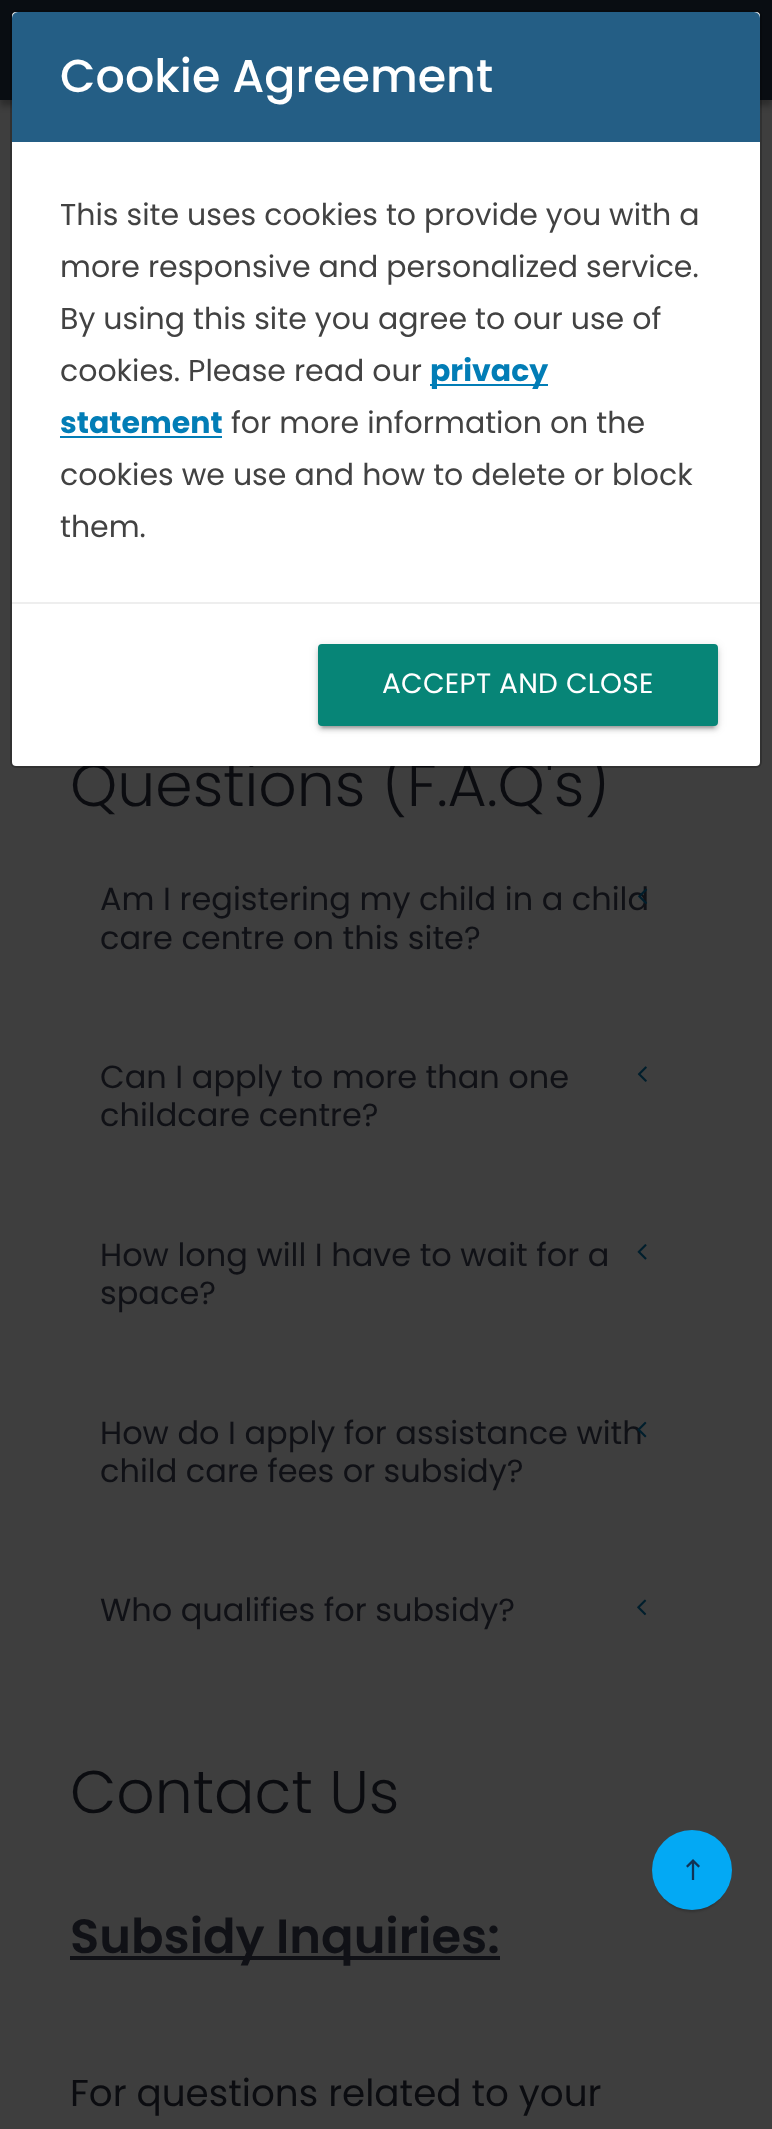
(async () => {
    const canvas = document.querySelector("canvas");
    canvas.width = 772;
    canvas.height = 2129;
    const context = canvas.getContext("2d");
    context.miterLimit = 4;
    context.fontKerning = "normal";
    function write(s, x, y, font, color) {
        context.font = font;
        context.fillStyle = color;
        context.fillText(s, x, y);
    }
    function block(x, y, w, h, color) {
        context.fillStyle = color;
        context.fillRect(x, y, w, h);
    }
    function card(x, y, w, h, r, color) {
        context.fillStyle = color;
        context.beginPath();
        context.roundRect(x, y, w, h, r);
        context.fill();
    }
    async function photo(src, x, y, w, h) {
        const img = new Image();
        img.src = src;
        await img.decode();
        context.drawImage(img, x, y, w, h);
    }

    block(0, 0, 772, 2129, "rgb(62, 62, 62)");
    context.fillStyle = "rgba(0, 0, 0, 0.29)";
    context.filter = "blur(3px)";
    context.beginPath();
    context.rect(0, 6, 772, 100);
    context.fill();
    context.filter = "none";
    block(0, 0, 772, 100, "rgb(9, 13, 18)");
    write("Questions (F.A.Q's)", 70, 806, "300 60px Poppins", "rgb(11, 12, 16)");
    card(12, 12, 748, 754, 4, "rgb(255, 255, 255)");
    context.beginPath();
    context.roundRect(11, 11, 750, 756, 5);
    context.strokeStyle = "rgba(0, 0, 0, 0.2)";
    context.lineWidth = 2;
    context.stroke();
    context.fillStyle = "rgb(36, 94, 133)";
    context.beginPath();
    context.roundRect(12, 12, 748, 130, [6, 6, 0, 0]);
    context.fill();
    write("Cookie Agreement", 60, 92, "500 46px Poppins", "rgb(255, 255, 255)");
    write("This site uses cookies to provide you with a", 60, 225, "30px Poppins", "rgb(66, 66, 66)");
    write("more responsive and personalized service.", 60, 277, "30px Poppins", "rgb(66, 66, 66)");
    write("By using this site you agree to our use of", 60, 329, "30px Poppins", "rgb(66, 66, 66)");
    write("cookies. Please read our", 60, 381, "30px Poppins", "rgb(66, 66, 66)");
    block(430, 384, 118, 2, "rgb(2, 125, 182)");
    write("privacy", 430, 381, "bold 30px Poppins", "rgb(2, 125, 182)");
    write("statement", 60, 433, "bold 30px Poppins", "rgb(2, 125, 182)");
    block(60, 436, 162, 2, "rgb(2, 125, 182)");
    write("for more information on the", 231, 433, "30px Poppins", "rgb(66, 66, 66)");
    write("cookies we use and how to delete or block", 60, 485, "30px Poppins", "rgb(66, 66, 66)");
    write("them.", 60, 537, "30px Poppins", "rgb(66, 66, 66)");
    block(12, 602, 748, 2, "rgb(238, 238, 238)");
    context.fillStyle = "rgba(0, 0, 0, 0.12)";
    context.filter = "blur(5px)";
    context.beginPath();
    context.roundRect(318, 646, 400, 82, 4);
    context.fill();
    context.filter = "none";
    context.fillStyle = "rgba(0, 0, 0, 0.2)";
    context.filter = "blur(1px)";
    context.beginPath();
    context.rect(322, 654, 392, 74);
    context.fill();
    context.filter = "none";
    context.fillStyle = "rgba(0, 0, 0, 0.14)";
    context.filter = "blur(2px)";
    context.beginPath();
    context.roundRect(318, 648, 400, 82, 4);
    context.fill();
    context.filter = "none";
    context.fillStyle = "rgb(7, 133, 119)";
    context.beginPath();
    context.roundRect(320, 646, 396, 78, 2);
    context.fill();
    context.strokeStyle = "rgb(7, 133, 119)";
    context.lineWidth = 4;
    context.stroke();
    context.letterSpacing = "0.25px";
    write("ACCEPT AND CLOSE", 382, 693, "28px Poppins", "rgb(255, 255, 255)");
    context.letterSpacing = "0px";
    write("Am I registering my child in a child", 100, 910, "32px Poppins", "rgb(16, 17, 22)");
    write("care centre on this site?", 100, 949, "32px Poppins", "rgb(16, 17, 22)");
    await photo("media/1.png", 638, 888, 10, 16);
    write("Can I apply to more than one", 100, 1088, "32px Poppins", "rgb(16, 17, 22)");
    write("childcare centre?", 100, 1126, "32px Poppins", "rgb(16, 17, 22)");
    await photo("media/2.png", 637, 1066, 10, 16);
    write("How long will I have to wait for a", 100, 1266, "32px Poppins", "rgb(16, 17, 22)");
    write("space?", 100, 1304, "32px Poppins", "rgb(16, 17, 22)");
    await photo("media/3.png", 637, 1244, 10, 16);
    write("How do I apply for assistance with", 100, 1444, "32px Poppins", "rgb(16, 17, 22)");
    write("child care fees or subsidy?", 100, 1482, "32px Poppins", "rgb(16, 17, 22)");
    await photo("media/4.png", 637, 1421, 10, 17);
    write("Who qualifies for subsidy?", 100, 1621, "32px Poppins", "rgb(16, 17, 22)");
    await photo("media/5.png", 637, 1599, 10, 17);
    write("Contact Us", 70, 1813, "300 60px Poppins", "rgb(11, 12, 16)");
    block(70, 1956, 430, 4, "rgb(16, 17, 22)");
    write("Subsidy Inquiries:", 70, 1953, "600 48px Poppins", "rgb(16, 17, 22)");
    write("For questions related to your", 70, 2106, "37.3px Poppins", "rgb(11, 12, 16)");
    context.fillStyle = "rgba(0, 0, 0, 0.2)";
    context.filter = "blur(1px)";
    context.beginPath();
    context.roundRect(656, 1840, 72, 72, 36);
    context.fill();
    context.filter = "none";
    context.fillStyle = "rgb(3, 169, 244)";
    context.beginPath();
    context.arc(692, 1870, 40, 0, Math.PI * 2);
    context.fill();
    await photo("media/6.png", 686, 1859, 14, 21);
})();
